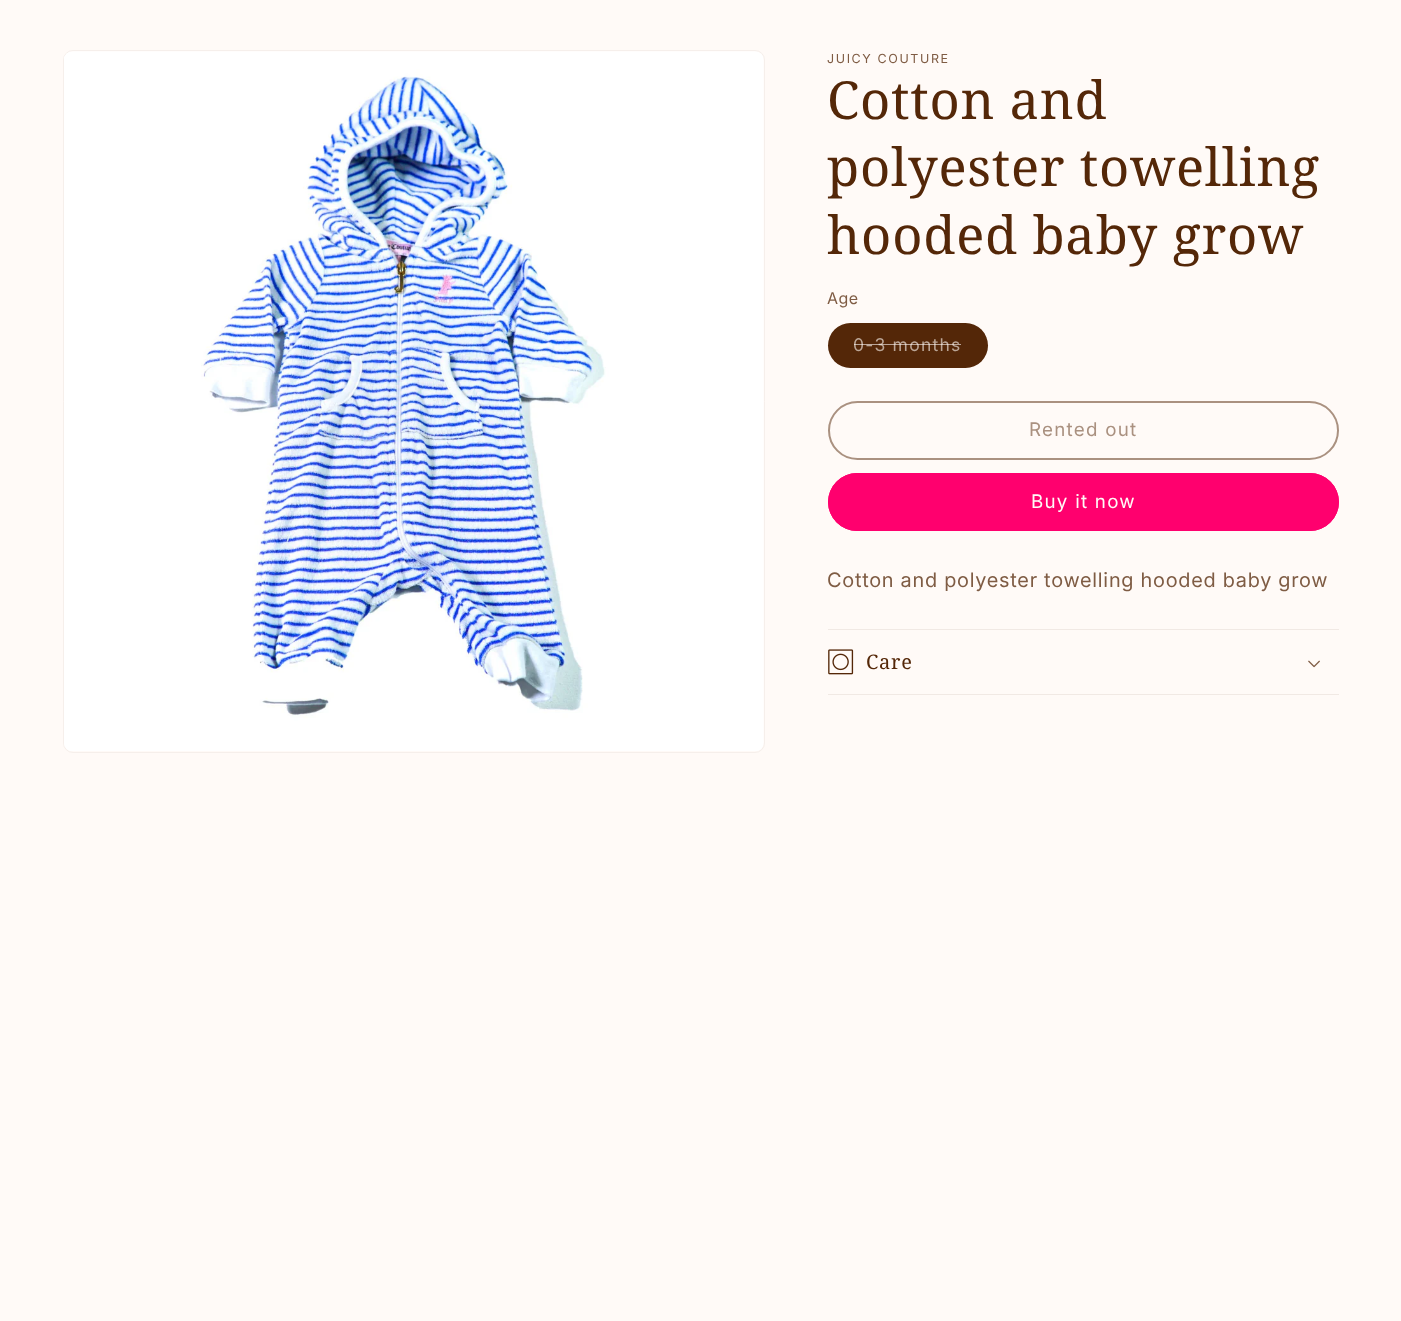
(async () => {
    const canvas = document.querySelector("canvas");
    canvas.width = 1401;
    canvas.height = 1321;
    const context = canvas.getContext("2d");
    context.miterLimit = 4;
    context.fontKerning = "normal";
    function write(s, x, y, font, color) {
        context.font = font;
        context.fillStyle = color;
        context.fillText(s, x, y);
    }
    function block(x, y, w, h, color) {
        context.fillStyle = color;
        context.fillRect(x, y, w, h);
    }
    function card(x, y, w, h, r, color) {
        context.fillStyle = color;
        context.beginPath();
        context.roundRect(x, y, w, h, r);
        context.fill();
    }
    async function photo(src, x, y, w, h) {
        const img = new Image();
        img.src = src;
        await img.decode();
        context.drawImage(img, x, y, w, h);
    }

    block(0, 0, 1401, 1321, "rgb(255, 250, 247)");
    context.beginPath();
    context.roundRect(63.5, 50.5, 701, 702, 9.5);
    context.strokeStyle = "rgb(246, 239, 235)";
    context.stroke();
    await photo("media/1.png", 64, 51, 700, 700);
    context.letterSpacing = "1.6px";
    write("JUICY COUTURE", 827, 63, "12.5px Inter", "rgb(127, 92, 68)");
    context.letterSpacing = "0.75px";
    write("Cotton and", 827, 119, "52.5px Noto Serif", "rgb(84, 39, 8)");
    write("polyester towelling", 827, 186, "52.5px Noto Serif", "rgb(84, 39, 8)");
    write("hooded baby grow", 827, 254, "52.5px Noto Serif", "rgb(84, 39, 8)");
    context.letterSpacing = "0.5px";
    write("Age", 827, 304, "16px Inter", "rgb(127, 92, 68)");
    card(828, 323, 160, 45, 22.5, "rgb(84, 39, 8)");
    context.beginPath();
    context.roundRect(828.5, 323.5, 159, 44, 22);
    context.strokeStyle = "rgba(84, 39, 8, 0.1)";
    context.stroke();
    context.letterSpacing = "1.25px";
    write("0-3 months", 853, 351, "17.5px Inter", "rgb(187, 166, 151)");
    block(854, 344, 107, 1, "rgba(255, 250, 247, 0.6)");
    context.beginPath();
    context.roundRect(829, 402, 509, 57, 28.5);
    context.strokeStyle = "rgb(170, 145, 128)";
    context.lineWidth = 2;
    context.stroke();
    write("Rented out", 1029, 436, "18.75px Inter", "rgb(170, 145, 128)");
    card(828, 473, 511, 58, 29, "rgb(255, 0, 110)");
    context.beginPath();
    context.roundRect(828.5, 473.5, 510, 57, 28.5);
    context.strokeStyle = "rgb(255, 0, 110)";
    context.lineWidth = 1;
    context.stroke();
    write("Buy it now", 1031, 508, "18.75px Inter", "rgb(255, 250, 247)");
    context.letterSpacing = "0.75px";
    write("Cotton and polyester towelling hooded baby grow", 827, 587, "20px 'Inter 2'", "rgb(127, 92, 68)");
    block(828, 629, 511, 1, "rgb(241, 233, 228)");
    block(828, 694, 511, 1, "rgb(241, 233, 228)");
    await photo("media/2.png", 828, 649, 26, 26);
    write("Care", 866, 669, "20px Noto Serif", "rgb(84, 39, 8)");
    await photo("media/3.png", 1308, 660, 12, 8);
})();
